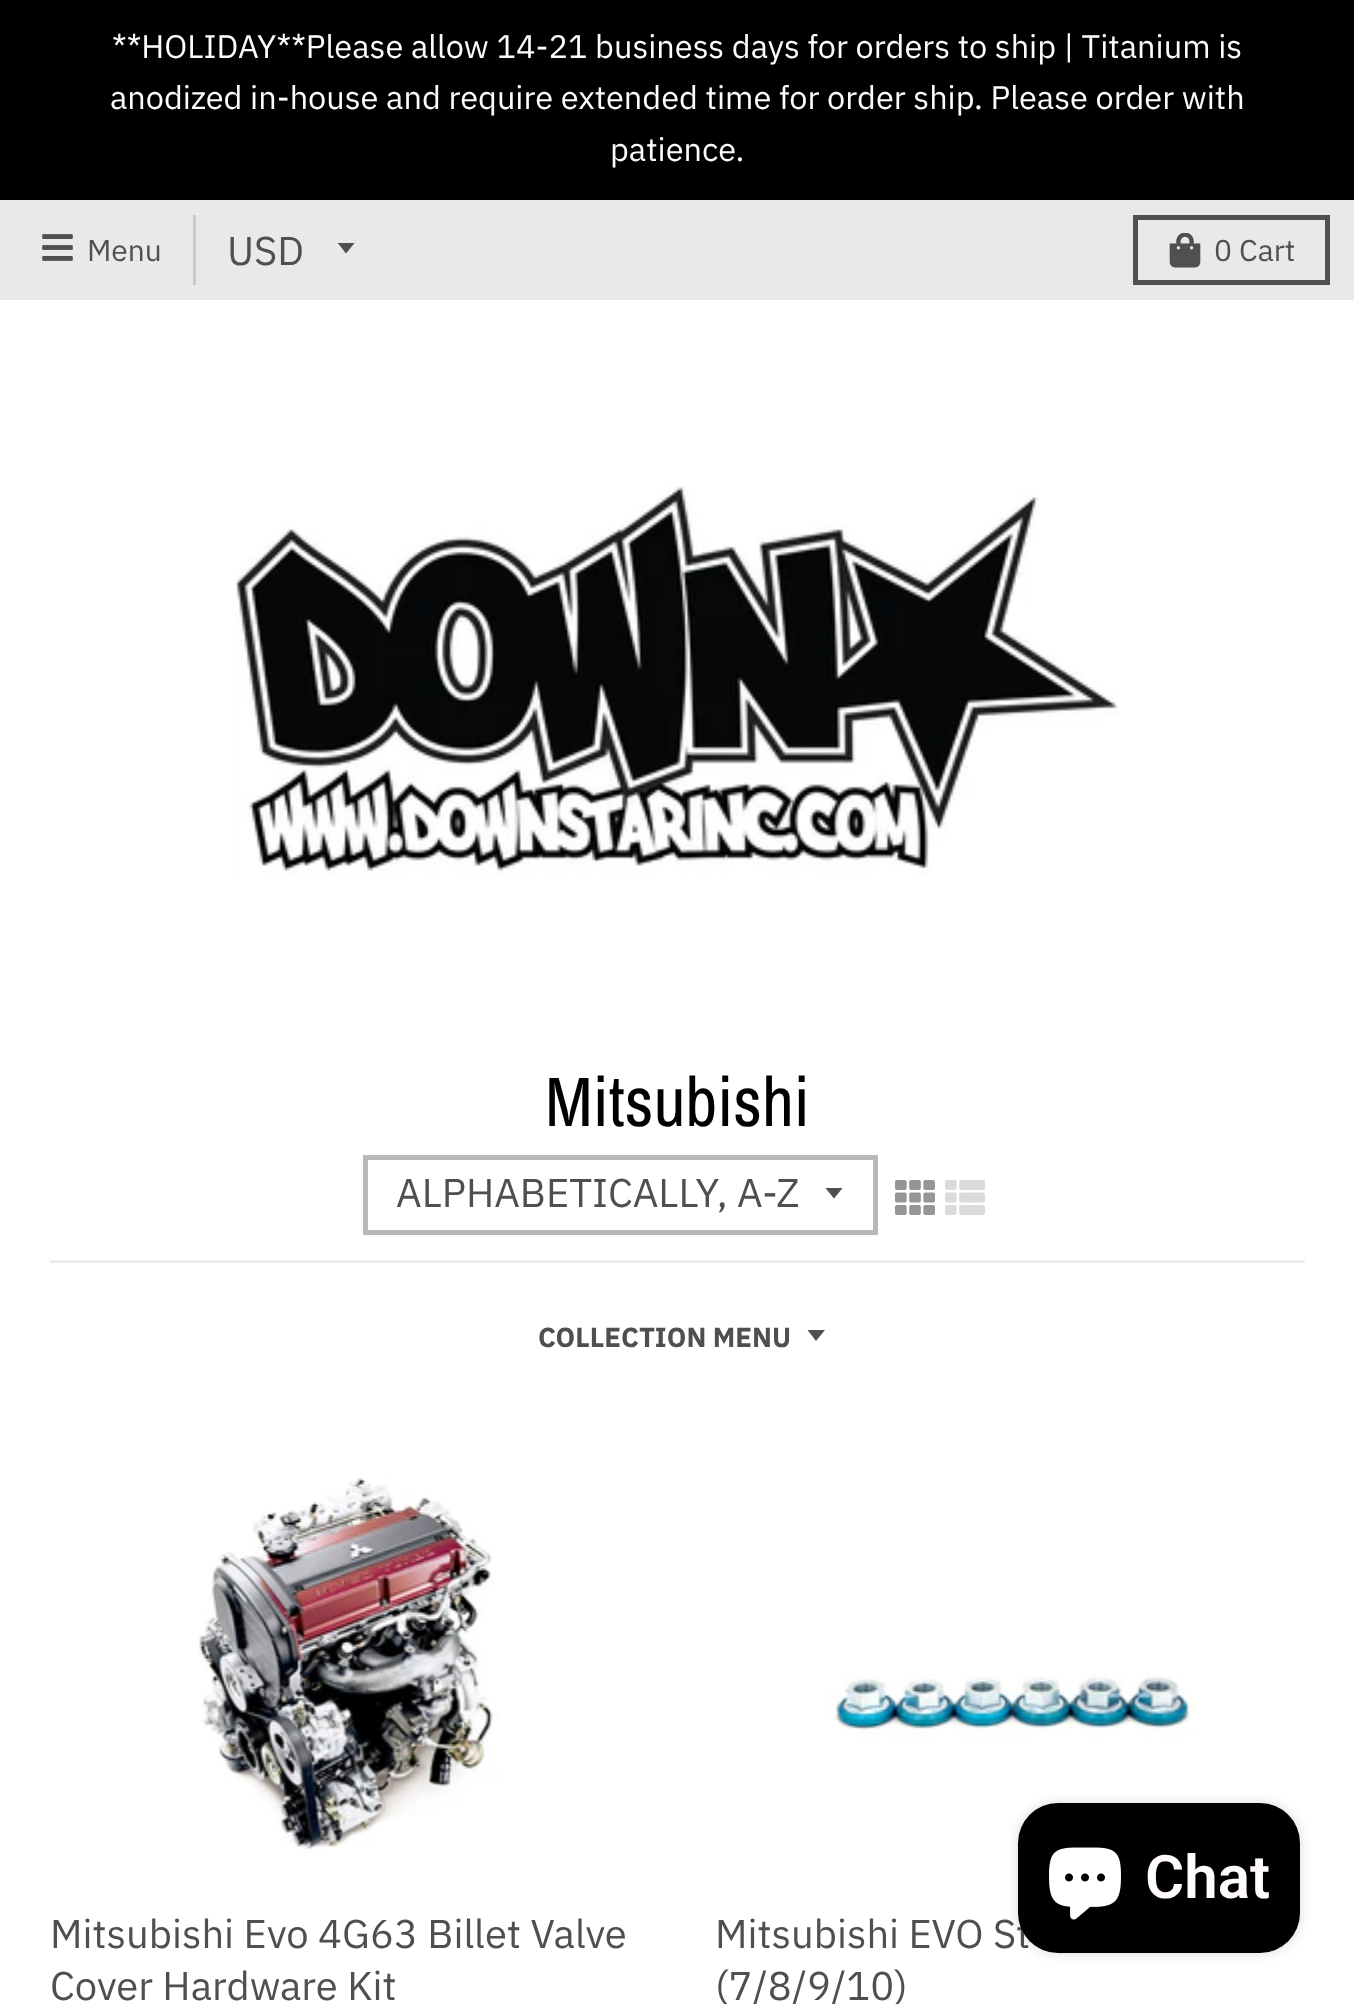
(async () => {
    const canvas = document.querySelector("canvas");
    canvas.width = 1354;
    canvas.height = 2004;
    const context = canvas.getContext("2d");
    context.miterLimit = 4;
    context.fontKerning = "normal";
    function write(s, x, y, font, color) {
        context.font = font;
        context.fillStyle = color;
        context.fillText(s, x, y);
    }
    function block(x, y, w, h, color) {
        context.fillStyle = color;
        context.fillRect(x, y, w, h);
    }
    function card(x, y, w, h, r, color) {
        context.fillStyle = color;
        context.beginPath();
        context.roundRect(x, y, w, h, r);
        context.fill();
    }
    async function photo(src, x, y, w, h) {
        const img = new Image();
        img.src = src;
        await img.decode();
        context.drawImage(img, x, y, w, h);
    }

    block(0, 0, 1354, 2004, "rgb(255, 255, 255)");
    block(0, 0, 1354, 200, "rgb(0, 0, 0)");
    write("**HOLIDAY**Please allow 14-21 business days for orders to ship | Titanium is", 112, 58, "32.5px IBM Plex Sans", "rgb(255, 251, 251)");
    write("anodized in-house and require extended time for order ship. Please order with", 110, 109, "32.5px IBM Plex Sans", "rgb(255, 251, 251)");
    write("patience.", 610, 161, "32.5px IBM Plex Sans", "rgb(255, 251, 251)");
    block(0, 200, 1354, 100, "rgb(233, 233, 233)");
    block(193, 215, 3, 70, "rgb(202, 202, 202)");
    await photo("media/1.png", 42, 234, 31, 27);
    write("Menu", 87, 261, "30px IBM Plex Sans", "rgb(79, 79, 79)");
    context.save();
    context.beginPath();
    context.rect(338, 243, 20, 12);
    context.clip();
    context.fillStyle = "rgb(80, 80, 80)";
    context.beginPath();
    context.moveTo(337.5, 242.5);
    context.lineTo(346, 253.5);
    context.lineTo(355, 242.5);
    context.closePath();
    context.fill();
    context.restore();
    write("USD", 227, 265, "40px IBM Plex Sans", "rgb(79, 79, 79)");
    context.strokeStyle = "rgb(80, 80, 80)";
    context.lineWidth = 5;
    context.strokeRect(1135.5, 217.5, 192, 65);
    await photo("media/2.png", 1169, 233, 32, 35);
    write("0 Cart", 1214, 261, "30px IBM Plex Sans", "rgb(79, 79, 79)");
    await photo("media/3.png", 234, 486, 885, 389);
    block(50, 1260, 1255, 3, "rgb(237, 237, 237)");
    write("Mitsubishi", 545, 1126, "70px Archivo Narrow", "rgb(0, 0, 0)");
    context.save();
    context.beginPath();
    context.rect(825, 1188, 20, 12);
    context.clip();
    context.fillStyle = "rgb(79, 79, 79)";
    context.beginPath();
    context.moveTo(825, 1187.5);
    context.lineTo(834, 1198.5);
    context.lineTo(843, 1187.5);
    context.closePath();
    context.fill();
    context.restore();
    context.strokeStyle = "rgb(184, 184, 184)";
    context.strokeRect(365.5, 1157.5, 510, 75);
    write("ALPHABETICALLY, A-Z", 396, 1207, "40px IBM Plex Sans", "rgb(79, 79, 79)");
    await photo("media/4.png", 895, 1180, 40, 35);
    await photo("media/5.png", 945, 1180, 40, 35);
    write("COLLECTION MENU", 538, 1347, "bold 27.5px IBM Plex Sans", "rgb(79, 79, 79)");
    context.beginPath();
    context.moveTo(807.5, 1330);
    context.lineTo(816, 1341);
    context.lineTo(825, 1330);
    context.closePath();
    context.fill();
    await photo("media/6.png", 198, 1478, 300, 372);
    write("Mitsubishi Evo 4G63 Billet Valve", 50, 1948, "40px IBM Plex Sans", "rgb(79, 79, 79)");
    write("Cover Hardware Kit", 50, 2000, "40px IBM Plex Sans", "rgb(79, 79, 79)");
    await photo("media/7.png", 828, 1673, 367, 65);
    write("Mitsubishi EVO St", 715, 1948, "40px IBM Plex Sans", "rgb(79, 79, 79)");
    write("(7/8/9/10)", 715, 2000, "40px IBM Plex Sans", "rgb(79, 79, 79)");
    context.fillStyle = "rgba(0, 0, 0, 0.15)";
    context.filter = "blur(6px)";
    context.beginPath();
    context.roundRect(1018, 1803, 282, 150, 40);
    context.fill();
    context.filter = "none";
    card(1018, 1803, 282, 150, 40, "rgb(0, 0, 0)");
    await photo("media/8.png", 1049, 1847, 72, 73);
    write("Chat", 1145, 1898, "600 60px Roboto", "rgb(255, 251, 251)");
})();
